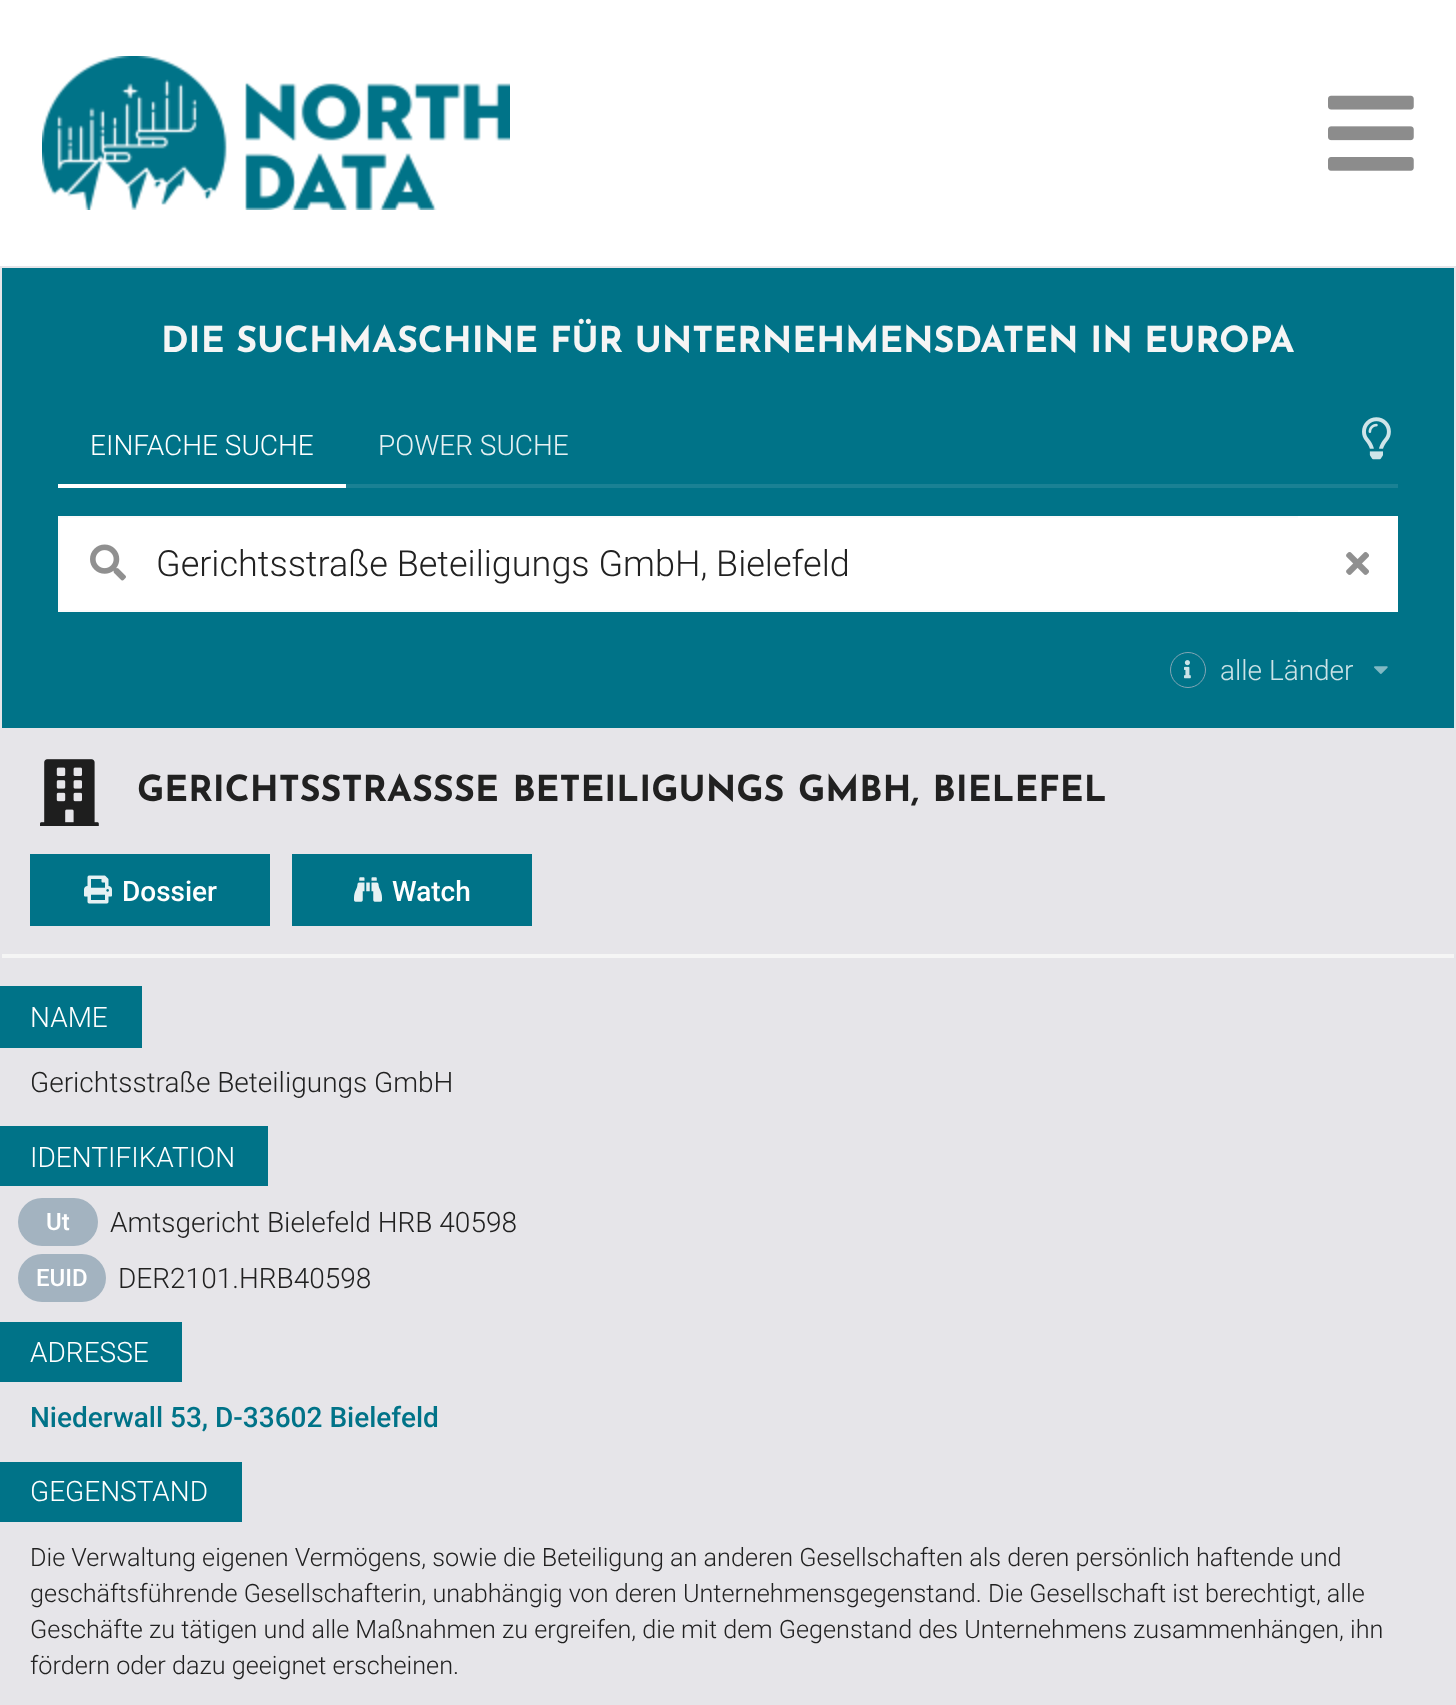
(async () => {
    const canvas = document.querySelector("canvas");
    canvas.width = 1456;
    canvas.height = 1705;
    const context = canvas.getContext("2d");
    context.miterLimit = 4;
    context.fontKerning = "normal";
    function write(s, x, y, font, color) {
        context.font = font;
        context.fillStyle = color;
        context.fillText(s, x, y);
    }
    function block(x, y, w, h, color) {
        context.fillStyle = color;
        context.fillRect(x, y, w, h);
    }
    function card(x, y, w, h, r, color) {
        context.fillStyle = color;
        context.beginPath();
        context.roundRect(x, y, w, h, r);
        context.fill();
    }
    async function photo(src, x, y, w, h) {
        const img = new Image();
        img.src = src;
        await img.decode();
        context.drawImage(img, x, y, w, h);
    }

    block(0, 0, 1456, 1705, "rgb(255, 255, 255)");
    await photo("media/1.png", 42, 56, 468, 154);
    await photo("media/2.png", 1328, 95, 86, 76);
    context.fillStyle = "rgb(0, 115, 136)";
    context.beginPath();
    context.rect(1, 267, 1454, 462);
    context.fill();
    context.strokeStyle = "rgb(230, 229, 233)";
    context.lineWidth = 2;
    context.stroke();
    write("DIE SUCHMASCHINE FÜR UNTERNEHMENSDATEN IN EUROPA", 161, 352, "100 35.85px Josefin Sans", "rgb(245, 245, 245)");
    block(346, 484, 1052, 4, "rgb(26, 129, 148)");
    block(58, 484, 288, 4, "rgb(255, 255, 255)");
    write("EINFACHE SUCHE", 90, 455, "300 28px Roboto", "rgb(255, 255, 255)");
    write("POWER SUCHE", 378, 455, "300 28px Roboto", "rgb(230, 241, 243)");
    await photo("media/3.png", 1362, 417, 29, 43);
    block(60, 518, 1238, 92, "rgb(255, 255, 255)");
    context.strokeStyle = "rgb(250, 250, 250)";
    context.strokeRect(59, 517, 1338, 94);
    await photo("media/4.png", 90, 544, 36, 37);
    write("Gerichtsstraße Beteiligungs GmbH, Bielefeld", 156, 576, "300 36px Roboto", "rgb(33, 33, 33)");
    block(1298, 516, 100, 96, "rgb(255, 255, 255)");
    await photo("media/5.png", 1346, 552, 23, 23);
    context.beginPath();
    context.arc(1188, 670, 17.5, 0, Math.PI * 2);
    context.strokeStyle = "rgb(130, 166, 181)";
    context.lineWidth = 1;
    context.stroke();
    await photo("media/6.png", 1184, 660, 7, 19);
    write("alle Länder", 1220, 680, "300 28px Roboto", "rgb(204, 227, 231)");
    await photo("media/7.png", 1374, 666, 14, 8);
    context.strokeStyle = "rgb(230, 229, 233)";
    context.lineWidth = 2;
    context.strokeRect(1, 731, 1454, 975);
    block(2, 732, 1452, 222, "rgb(230, 229, 233)");
    await photo("media/8.png", 40, 759, 59, 67);
    write("GERICHTSSTRASS", 137, 801, "100 35.85px Josefin Sans", "rgb(33, 33, 33)");
    context.wordSpacing = "2px";
    write("SE BETEILIGUNGS GMBH, BIELEFEL", 454, 801, "100 35.85px Josefin Sans", "rgb(33, 33, 33)");
    block(30, 854, 240, 72, "rgb(0, 115, 136)");
    await photo("media/9.png", 84, 875, 28, 29);
    context.wordSpacing = "0px";
    write("Dossier", 122, 901, "500 28px Roboto", "rgb(255, 255, 255)");
    block(292, 854, 240, 72, "rgb(0, 115, 136)");
    await photo("media/10.png", 354, 877, 28, 25);
    write("Watch", 392, 901, "500 28px Roboto", "rgb(255, 255, 255)");
    block(2, 958, 1452, 747, "rgb(230, 229, 233)");
    block(2, 954, 1452, 4, "rgb(245, 245, 245)");
    block(0, 986, 142, 62, "rgb(0, 115, 136)");
    write("NAME", 30, 1027, "300 28px Roboto", "rgb(255, 255, 255)");
    write("Gerichtsstraße Beteiligungs GmbH", 30, 1092, "300 28px Roboto", "rgb(33, 33, 33)");
    block(0, 1126, 268, 60, "rgb(0, 115, 136)");
    write("IDENTIFIKATION", 30, 1167, "300 28px Roboto", "rgb(255, 255, 255)");
    card(18, 1198, 80, 48, 24, "rgb(163, 179, 192)");
    write("Ut", 46, 1230, "500 24px Roboto", "rgb(255, 255, 255)");
    write("Amtsgericht Bielefeld HRB 40598", 110, 1232, "300 28px Roboto", "rgb(33, 33, 33)");
    card(18, 1254, 88, 48, 24, "rgb(163, 179, 192)");
    write("EUID", 36, 1286, "500 24px Roboto", "rgb(255, 255, 255)");
    write("DER2101.HRB40598", 118, 1288, "300 28px Roboto", "rgb(33, 33, 33)");
    block(0, 1322, 182, 60, "rgb(0, 115, 136)");
    write("ADRESSE", 30, 1362, "300 28px Roboto", "rgb(255, 255, 255)");
    write("Niederwall 53, D-33602 Bielefeld", 30, 1427, "500 28px Roboto", "rgb(0, 115, 136)");
    block(0, 1462, 242, 60, "rgb(0, 115, 136)");
    write("GEGENSTAND", 30, 1501, "300 28px Roboto", "rgb(255, 255, 255)");
    write("Die Verwaltung eigenen Vermögens, sowie die Beteiligung an anderen Gesellschaften als deren persönlich haftende und", 30, 1566, "300 25.2px Roboto", "rgb(33, 33, 33)");
    write("geschäftsführende Gesellschafterin, unabhängig von deren Unternehmensgegenstand. Die Gesellschaft ist berechtigt, alle", 30, 1602, "300 25.2px Roboto", "rgb(33, 33, 33)");
    write("Geschäfte zu tätigen und alle Maßnahmen zu ergreifen, die mit dem Gegenstand des Unternehmens zusammenhängen, ihn", 30, 1638, "300 25.2px Roboto", "rgb(33, 33, 33)");
    write("fördern oder dazu geeignet erscheinen.", 30, 1674, "300 25.2px Roboto", "rgb(33, 33, 33)");
})();
